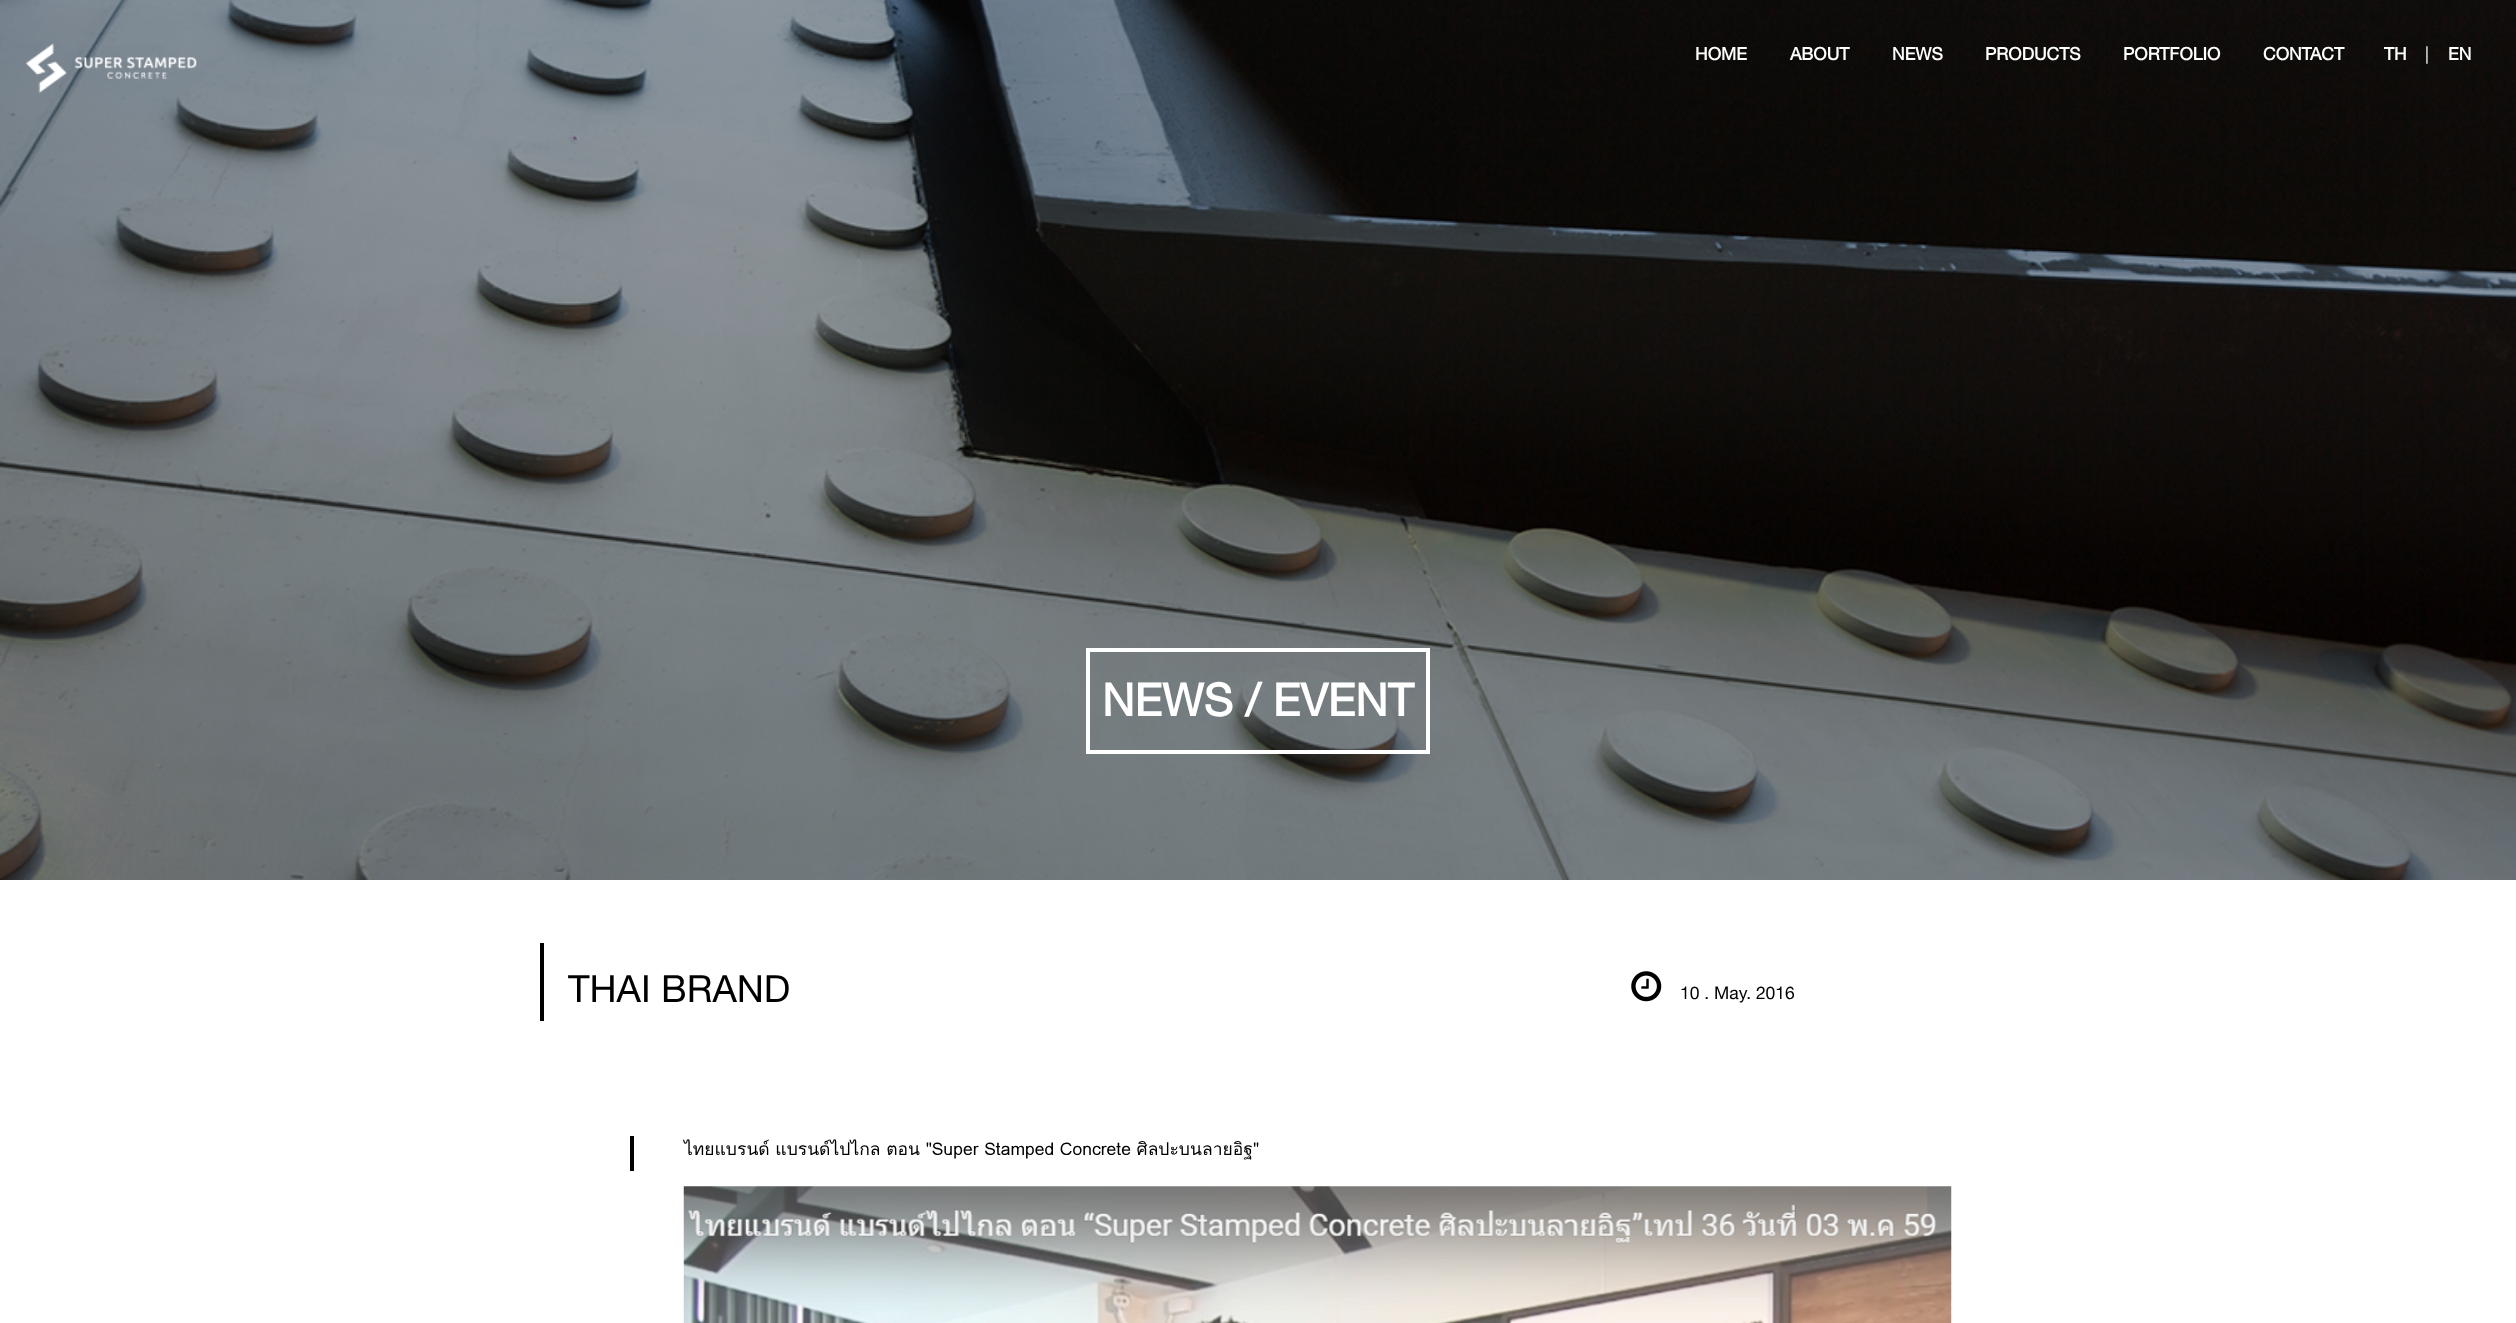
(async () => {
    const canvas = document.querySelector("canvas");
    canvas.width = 2516;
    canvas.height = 1323;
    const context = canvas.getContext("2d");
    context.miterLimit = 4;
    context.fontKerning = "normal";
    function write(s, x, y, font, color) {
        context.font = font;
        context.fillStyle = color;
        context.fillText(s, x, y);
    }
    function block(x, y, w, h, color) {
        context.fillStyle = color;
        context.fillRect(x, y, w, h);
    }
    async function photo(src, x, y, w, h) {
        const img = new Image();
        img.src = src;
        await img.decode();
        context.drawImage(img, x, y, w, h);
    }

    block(0, 0, 2516, 1323, "rgb(255, 255, 255)");
    await photo("media/1.png", 0, 0, 2516, 880);
    await photo("media/2.png", 26, 43, 171, 50);
    write("HOME", 1695, 60, "bold 17.5px Helvetica Neue", "rgb(255, 255, 255)");
    write("ABOUT", 1790, 60, "bold 17.5px Helvetica Neue", "rgb(255, 255, 255)");
    write("NEWS", 1892, 60, "bold 17.5px Helvetica Neue", "rgb(255, 255, 255)");
    write("PRODUCTS", 1985, 60, "bold 17.5px Helvetica Neue", "rgb(255, 255, 255)");
    write("PORTFOLIO", 2123, 60, "bold 17.5px Helvetica Neue", "rgb(255, 255, 255)");
    write("CONTACT", 2263, 60, "bold 17.5px Helvetica Neue", "rgb(255, 255, 255)");
    write("TH", 2384, 60, "bold 17.5px Helvetica Neue", "rgb(255, 255, 255)");
    write("|", 2425, 60, "17.5px Helvetica Neue", "rgb(255, 255, 255)");
    write("EN", 2448, 60, "bold 17.5px Helvetica Neue", "rgb(255, 255, 255)");
    context.strokeStyle = "rgb(255, 255, 255)";
    context.lineWidth = 4;
    context.strokeRect(1088, 650, 340, 102);
    write("NEWS / EVENT", 1102, 716, "bold 45px Helvetica Neue", "rgb(255, 255, 255)");
    block(540, 943, 4, 78, "rgb(0, 0, 0)");
    write("THAI BRAND", 568, 1002, "37.5px Helvetica Neue", "rgb(0, 0, 0)");
    await photo("media/3.png", 1631, 971, 31, 31);
    write("10 . May. 2016", 1680, 999, "17.5px Helvetica Neue", "rgb(0, 0, 0)");
    block(630, 1136, 4, 35, "rgb(0, 0, 0)");
    context.wordSpacing = "-0.25px";
    write("ไทยแบรนด์ แบรนด์ไปไกล ตอน \"Super Stamped Concrete ศิลปะบนลายอิฐ\"", 684, 1155, "17.5px Loma", "rgb(0, 0, 0)");
    await photo("media/4.png", 683, 1186, 1269, 137);
})();
